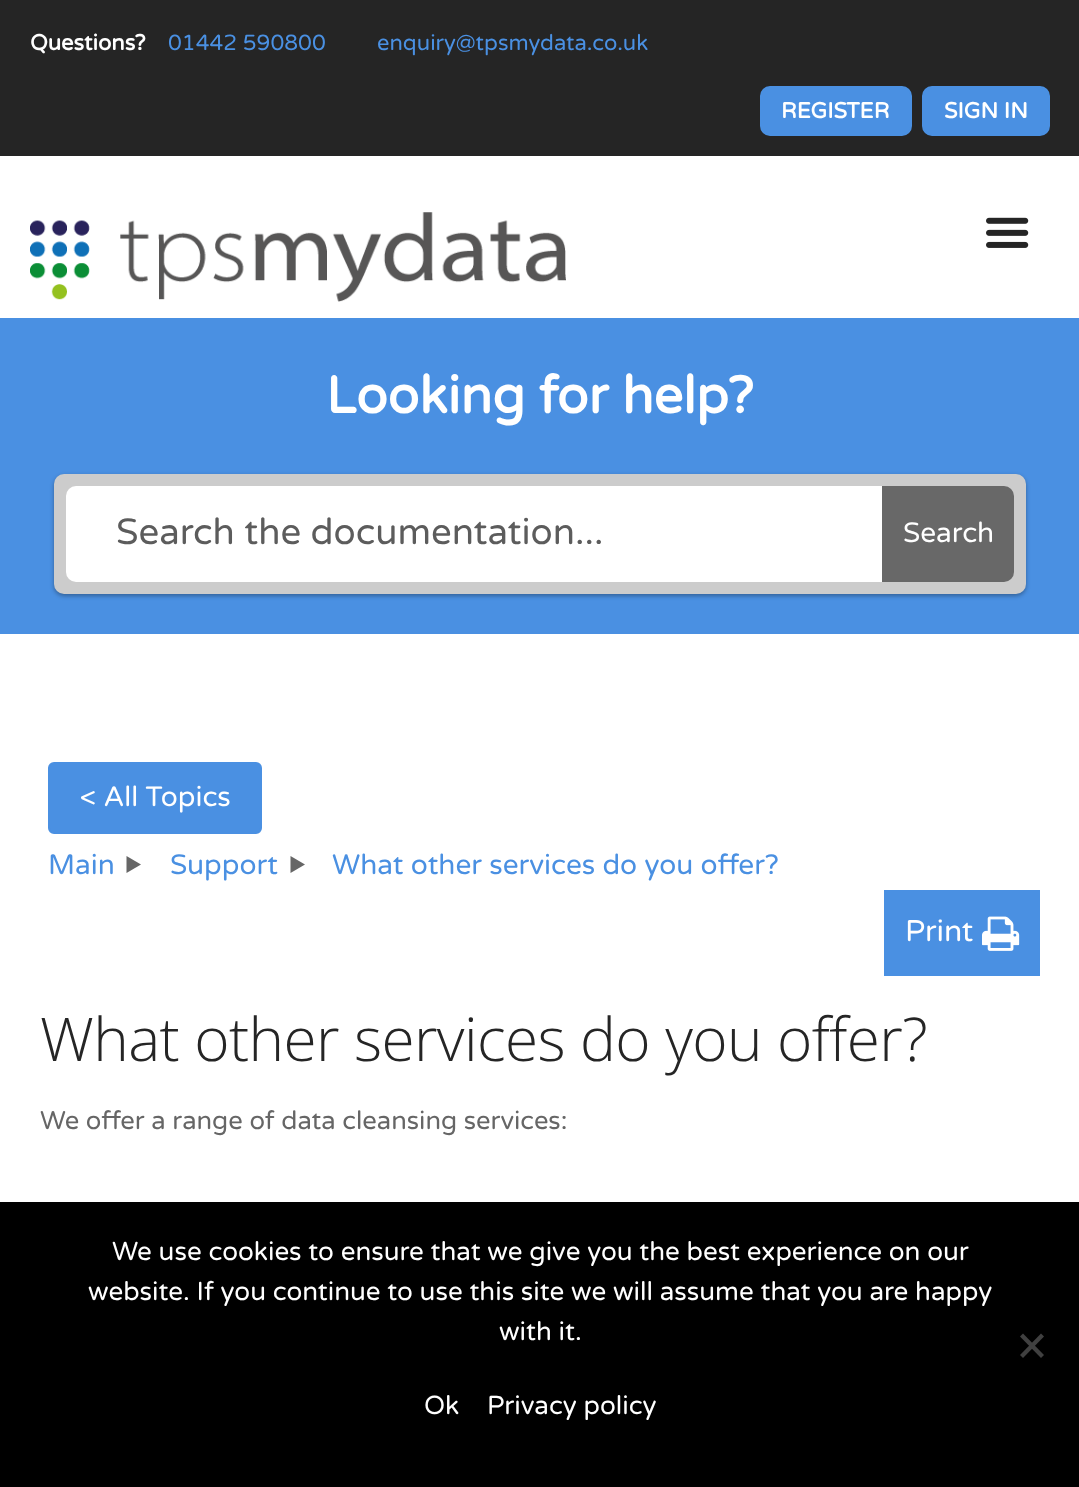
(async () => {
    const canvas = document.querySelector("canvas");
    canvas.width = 1079;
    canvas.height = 1487;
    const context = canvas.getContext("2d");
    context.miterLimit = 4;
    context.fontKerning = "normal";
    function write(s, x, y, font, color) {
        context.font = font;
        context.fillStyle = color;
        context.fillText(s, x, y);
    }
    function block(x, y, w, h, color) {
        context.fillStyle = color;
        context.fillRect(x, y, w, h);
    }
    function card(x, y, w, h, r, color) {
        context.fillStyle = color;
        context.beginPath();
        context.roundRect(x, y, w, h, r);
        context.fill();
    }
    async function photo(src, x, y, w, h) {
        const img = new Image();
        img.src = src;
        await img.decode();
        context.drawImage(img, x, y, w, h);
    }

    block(0, 0, 1079, 1487, "rgb(255, 255, 255)");
    block(0, 0, 1079, 156, "rgb(37, 37, 37)");
    write("Questions?", 30, 50, "bold 22px Varela Round", "rgb(255, 255, 255)");
    write("01442 590800", 168, 50, "22px Varela Round", "rgb(74, 144, 226)");
    write("enquiry@tpsmydata.co.uk", 377, 50, "22px Varela Round", "rgb(74, 144, 226)");
    context.beginPath();
    context.roundRect(761, 87, 150, 48, 9);
    context.fill();
    context.strokeStyle = "rgb(74, 144, 226)";
    context.lineWidth = 2;
    context.stroke();
    write("REGISTER", 781, 118, "bold 22px Varela Round", "rgb(255, 255, 255)");
    context.fillStyle = "rgb(74, 144, 226)";
    context.beginPath();
    context.roundRect(923, 87, 126, 48, 9);
    context.fill();
    context.stroke();
    write("SIGN IN", 944, 118, "bold 22px Varela Round", "rgb(255, 255, 255)");
    await photo("media/1.png", 30, 212, 536, 90);
    await photo("media/2.png", 986, 217, 43, 31);
    block(0, 318, 1079, 316, "rgb(74, 144, 226)");
    write("Looking for help?", 326, 413, "bold 52px Varela Round", "rgb(255, 255, 255)");
    context.fillStyle = "rgba(0, 0, 0, 0.32)";
    context.filter = "blur(2px)";
    context.beginPath();
    context.roundRect(54, 476, 972, 120, 10);
    context.fill();
    context.filter = "none";
    card(54, 474, 972, 120, 10, "rgb(204, 204, 204)");
    context.fillStyle = "rgb(255, 255, 255)";
    context.beginPath();
    context.roundRect(66, 486, 816, 96, [10, 0, 0, 10]);
    context.fill();
    write("Search the documentation...", 116, 544, "36.5px Varela Round", "rgb(92, 92, 92)");
    context.fillStyle = "rgb(104, 104, 104)";
    context.beginPath();
    context.roundRect(882, 486, 132, 96, [0, 10, 10, 0]);
    context.fill();
    write("Search", 903, 542, "28px Varela Round", "rgb(255, 255, 255)");
    context.fillStyle = "rgb(74, 144, 226)";
    context.beginPath();
    context.roundRect(49, 763, 212, 70, 5);
    context.fill();
    context.stroke();
    write("< All Topics", 80, 806, "28px Varela Round", "rgb(255, 255, 255)");
    write("Main", 48, 874, "28px Varela Round", "rgb(74, 144, 226)");
    context.fillStyle = "rgb(102, 102, 102)";
    context.beginPath();
    context.moveTo(126.5, 856);
    context.lineTo(141, 864.5);
    context.lineTo(126.5, 873);
    context.closePath();
    context.fill();
    write("Support", 170, 874, "28px Varela Round", "rgb(74, 144, 226)");
    context.fillStyle = "rgb(102, 102, 102)";
    context.beginPath();
    context.moveTo(290.5, 856);
    context.lineTo(305, 864.5);
    context.lineTo(290.5, 873);
    context.closePath();
    context.fill();
    write("What other services do you offer?", 332, 874, "28px Varela Round", "rgb(74, 144, 226)");
    block(884, 890, 156, 86, "rgb(74, 144, 226)");
    write("Print", 905, 941, "30px Varela Round", "rgb(255, 255, 255)");
    await photo("media/3.png", 982, 916, 38, 35);
    context.letterSpacing = "-0.6px";
    write("What other services do you offer?", 40, 1061, "300 60.3px Open Sans", "rgb(37, 37, 37)");
    context.letterSpacing = "0px";
    write("We offer a range of data cleansing services:", 40, 1129, "25.6px Varela Round", "rgb(102, 102, 102)");
    block(0, 1202, 1079, 285, "rgb(0, 0, 0)");
    write("We use cookies to ensure that we give you the best experience on our", 112, 1260, "26px Varela Round", "rgb(255, 255, 255)");
    write("website. If you continue to use this site we will assume that you are happy", 88, 1300, "26px Varela Round", "rgb(255, 255, 255)");
    write("with it.", 499, 1340, "26px Varela Round", "rgb(255, 255, 255)");
    context.fillStyle = "rgb(64, 64, 64)";
    context.beginPath();
    context.moveTo(1041, 1333.5);
    context.lineTo(1044, 1336.5);
    context.lineTo(1023, 1358);
    context.lineTo(1020, 1355);
    context.closePath();
    context.fill();
    context.beginPath();
    context.moveTo(1020, 1336.5);
    context.lineTo(1023, 1333.5);
    context.lineTo(1044, 1355);
    context.lineTo(1041, 1358);
    context.closePath();
    context.fill();
    write("Ok", 424, 1414, "26px Varela Round", "rgb(255, 255, 255)");
    write("Privacy policy", 487, 1414, "26px Varela Round", "rgb(255, 255, 255)");
})();
